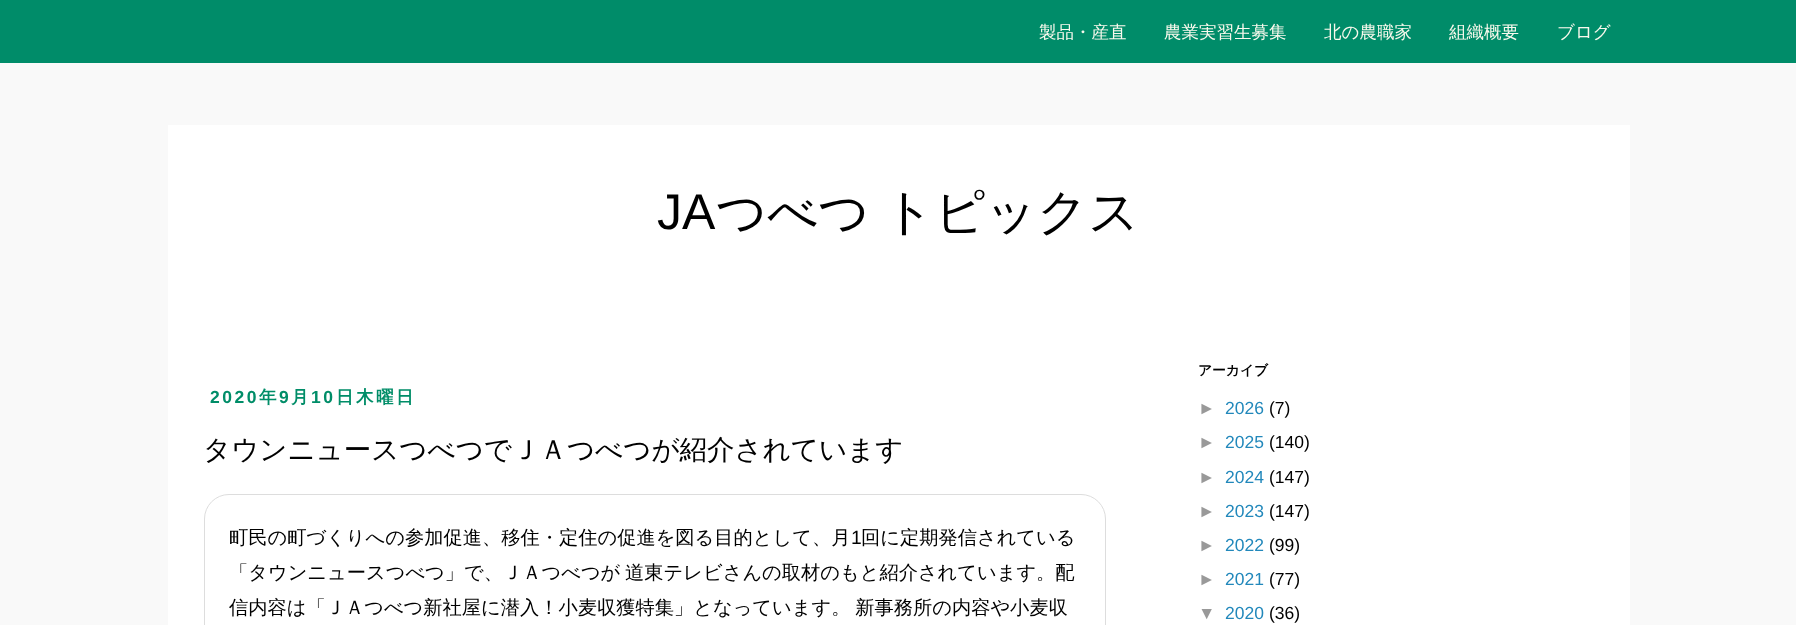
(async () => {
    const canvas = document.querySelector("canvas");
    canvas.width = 1796;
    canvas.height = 625;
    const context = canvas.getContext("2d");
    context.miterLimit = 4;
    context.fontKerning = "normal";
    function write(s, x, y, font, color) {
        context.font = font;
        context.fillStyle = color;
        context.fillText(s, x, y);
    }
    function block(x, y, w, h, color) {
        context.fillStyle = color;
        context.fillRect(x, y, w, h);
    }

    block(0, 0, 1796, 625, "rgb(249, 249, 249)");
    block(0, 0, 1796, 63, "rgb(0, 140, 105)");
    write("製品・産直", 1039, 38, "500 17.5px WenQuanYi Zen Hei", "rgb(249, 249, 237)");
    write("農業実習生募集", 1164, 38, "500 17.5px WenQuanYi Zen Hei", "rgb(249, 249, 237)");
    write("北の農職家", 1324, 38, "500 17.5px WenQuanYi Zen Hei", "rgb(249, 249, 237)");
    write("組織概要", 1449, 38, "500 17.5px WenQuanYi Zen Hei", "rgb(249, 249, 237)");
    write("ブログ", 1557, 38, "500 17.5px WenQuanYi Zen Hei", "rgb(249, 249, 237)");
    block(168, 125, 1462, 500, "rgb(255, 255, 255)");
    write("JA", 657, 229, "50px Liberation Sans", "rgb(0, 0, 0)");
    context.wordSpacing = "-1px";
    write("つべつ トピックス", 716, 229, "500 50px WenQuanYi Zen Hei", "rgb(0, 0, 0)");
    context.letterSpacing = "2.5px";
    context.wordSpacing = "0px";
    write("2020", 210, 403, "bold 17.5px Liberation Sans", "rgb(0, 141, 104)");
    write("年", 259, 403, "bold 17.5px WenQuanYi Zen Hei", "rgb(0, 141, 104)");
    write("9", 279, 403, "bold 17.5px Liberation Sans", "rgb(0, 141, 104)");
    write("月", 291, 403, "bold 17.5px WenQuanYi Zen Hei", "rgb(0, 141, 104)");
    write("10", 311, 403, "bold 17.5px Liberation Sans", "rgb(0, 141, 104)");
    write("日木曜日", 336, 403, "bold 17.5px WenQuanYi Zen Hei", "rgb(0, 141, 104)");
    context.letterSpacing = "0px";
    write("タウンニュースつべつでＪＡつべつが紹介されています", 203, 459, "500 27.5px WenQuanYi Zen Hei", "rgb(0, 0, 0)");
    context.beginPath();
    context.roundRect(204.5, 494.5, 901, 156, 24.5);
    context.strokeStyle = "rgb(221, 221, 221)";
    context.stroke();
    write("町民の町づくりへの参加促進、移住・定住の促進を図る目的として、月", 229, 544, "500 19.25px WenQuanYi Zen Hei", "rgb(0, 0, 0)");
    write("1", 851, 544, "19.25px Liberation Sans", "rgb(0, 0, 0)");
    write("回に定期発信されている", 861, 544, "500 19.25px WenQuanYi Zen Hei", "rgb(0, 0, 0)");
    context.wordSpacing = "-1px";
    write("「タウンニュースつべつ」で、ＪＡつべつが 道東テレビさんの取材のもと紹介されています。配", 229, 579, "500 19.25px WenQuanYi Zen Hei", "rgb(0, 0, 0)");
    write("信内容は「ＪＡつべつ新社屋に潜入！小麦収獲特集」となっています。 新事務所の内容や小麦収", 229, 614, "500 19.25px WenQuanYi Zen Hei", "rgb(0, 0, 0)");
    context.wordSpacing = "0px";
    write("アーカイブ", 1198, 375, "bold 13.75px WenQuanYi Zen Hei", "rgb(0, 0, 0)");
    write("►", 1198, 414, "17.5px Liberation Sans", "rgb(153, 153, 153)");
    write("2026", 1225, 414, "17.5px Liberation Sans", "rgb(34, 136, 187)");
    write("(7)", 1269, 414, "17.5px Liberation Sans", "rgb(0, 0, 0)");
    write("►", 1198, 448, "17.5px Liberation Sans", "rgb(153, 153, 153)");
    write("2025", 1225, 448, "17.5px Liberation Sans", "rgb(34, 136, 187)");
    write("(140)", 1269, 448, "17.5px Liberation Sans", "rgb(0, 0, 0)");
    write("►", 1198, 483, "17.5px Liberation Sans", "rgb(153, 153, 153)");
    write("2024", 1225, 483, "17.5px Liberation Sans", "rgb(34, 136, 187)");
    write("(147)", 1269, 483, "17.5px Liberation Sans", "rgb(0, 0, 0)");
    write("►", 1198, 517, "17.5px Liberation Sans", "rgb(153, 153, 153)");
    write("2023", 1225, 517, "17.5px Liberation Sans", "rgb(34, 136, 187)");
    write("(147)", 1269, 517, "17.5px Liberation Sans", "rgb(0, 0, 0)");
    write("►", 1198, 551, "17.5px Liberation Sans", "rgb(153, 153, 153)");
    write("2022", 1225, 551, "17.5px Liberation Sans", "rgb(34, 136, 187)");
    write("(99)", 1269, 551, "17.5px Liberation Sans", "rgb(0, 0, 0)");
    write("►", 1198, 585, "17.5px Liberation Sans", "rgb(153, 153, 153)");
    write("2021", 1225, 585, "17.5px Liberation Sans", "rgb(34, 136, 187)");
    write("(77)", 1269, 585, "17.5px Liberation Sans", "rgb(0, 0, 0)");
    write("▼", 1198, 619, "17.5px Liberation Sans", "rgb(153, 153, 153)");
    write("2020", 1225, 619, "17.5px Liberation Sans", "rgb(34, 136, 187)");
    write("(36)", 1269, 619, "17.5px Liberation Sans", "rgb(0, 0, 0)");
})();
